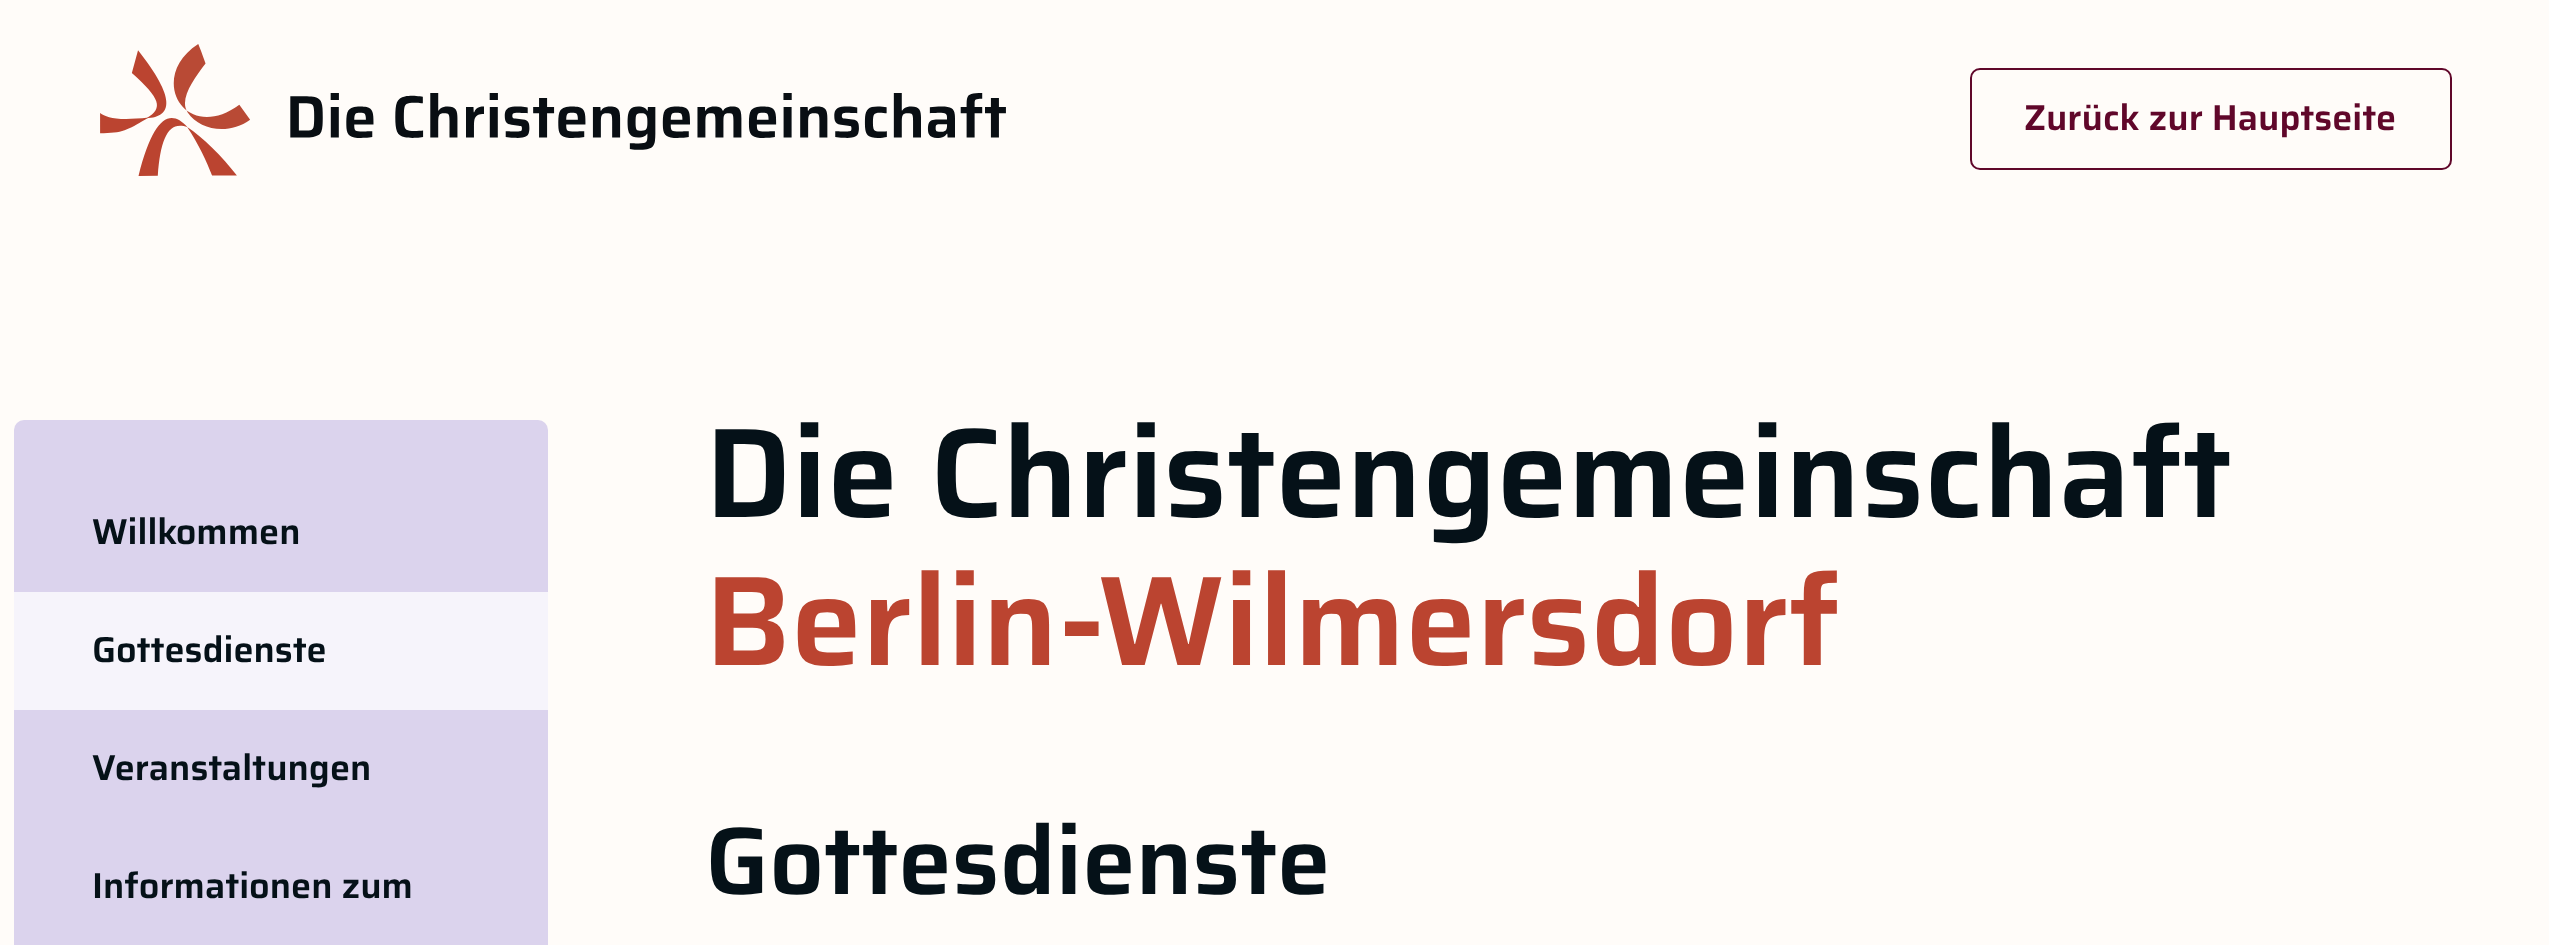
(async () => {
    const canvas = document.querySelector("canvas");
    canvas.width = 2549;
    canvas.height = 945;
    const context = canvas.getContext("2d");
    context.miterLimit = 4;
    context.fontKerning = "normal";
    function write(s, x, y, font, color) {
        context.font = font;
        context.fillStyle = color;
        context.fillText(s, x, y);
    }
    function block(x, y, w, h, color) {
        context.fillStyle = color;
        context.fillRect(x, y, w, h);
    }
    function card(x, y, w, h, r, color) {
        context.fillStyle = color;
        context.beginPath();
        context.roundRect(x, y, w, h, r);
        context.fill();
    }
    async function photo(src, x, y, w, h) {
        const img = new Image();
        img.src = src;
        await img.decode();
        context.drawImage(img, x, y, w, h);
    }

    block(0, 0, 2549, 945, "rgb(255, 252, 249)");
    await photo("media/1.png", 100, 44, 906, 132);
    context.beginPath();
    context.roundRect(1971, 69, 480, 100, 9);
    context.strokeStyle = "rgb(96, 7, 42)";
    context.lineWidth = 2;
    context.stroke();
    write("Zurück zur Hauptseite", 2024, 130, "100 36px Saira", "rgb(96, 7, 42)");
    card(14, 420, 534, 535, 10, "rgb(219, 211, 237)");
    write("Willkommen", 92, 544, "100 36px Saira", "rgb(5, 17, 24)");
    block(14, 592, 534, 118, "rgb(246, 244, 251)");
    write("Gottesdienste", 92, 662, "100 36px Saira", "rgb(5, 17, 24)");
    write("Veranstaltungen", 92, 780, "100 36px Saira", "rgb(5, 17, 24)");
    write("Informationen zum", 92, 898, "100 36px Saira", "rgb(5, 17, 24)");
    write("Die Christengemeinschaft", 705, 517, "100 127.5px Saira", "rgb(5, 17, 24)");
    write("Berlin-Wilmersdorf", 705, 665, "100 127.5px Saira", "rgb(187, 68, 48)");
    write("Gottesdienste", 705, 894, "100 96px Saira", "rgb(5, 17, 24)");
})();
